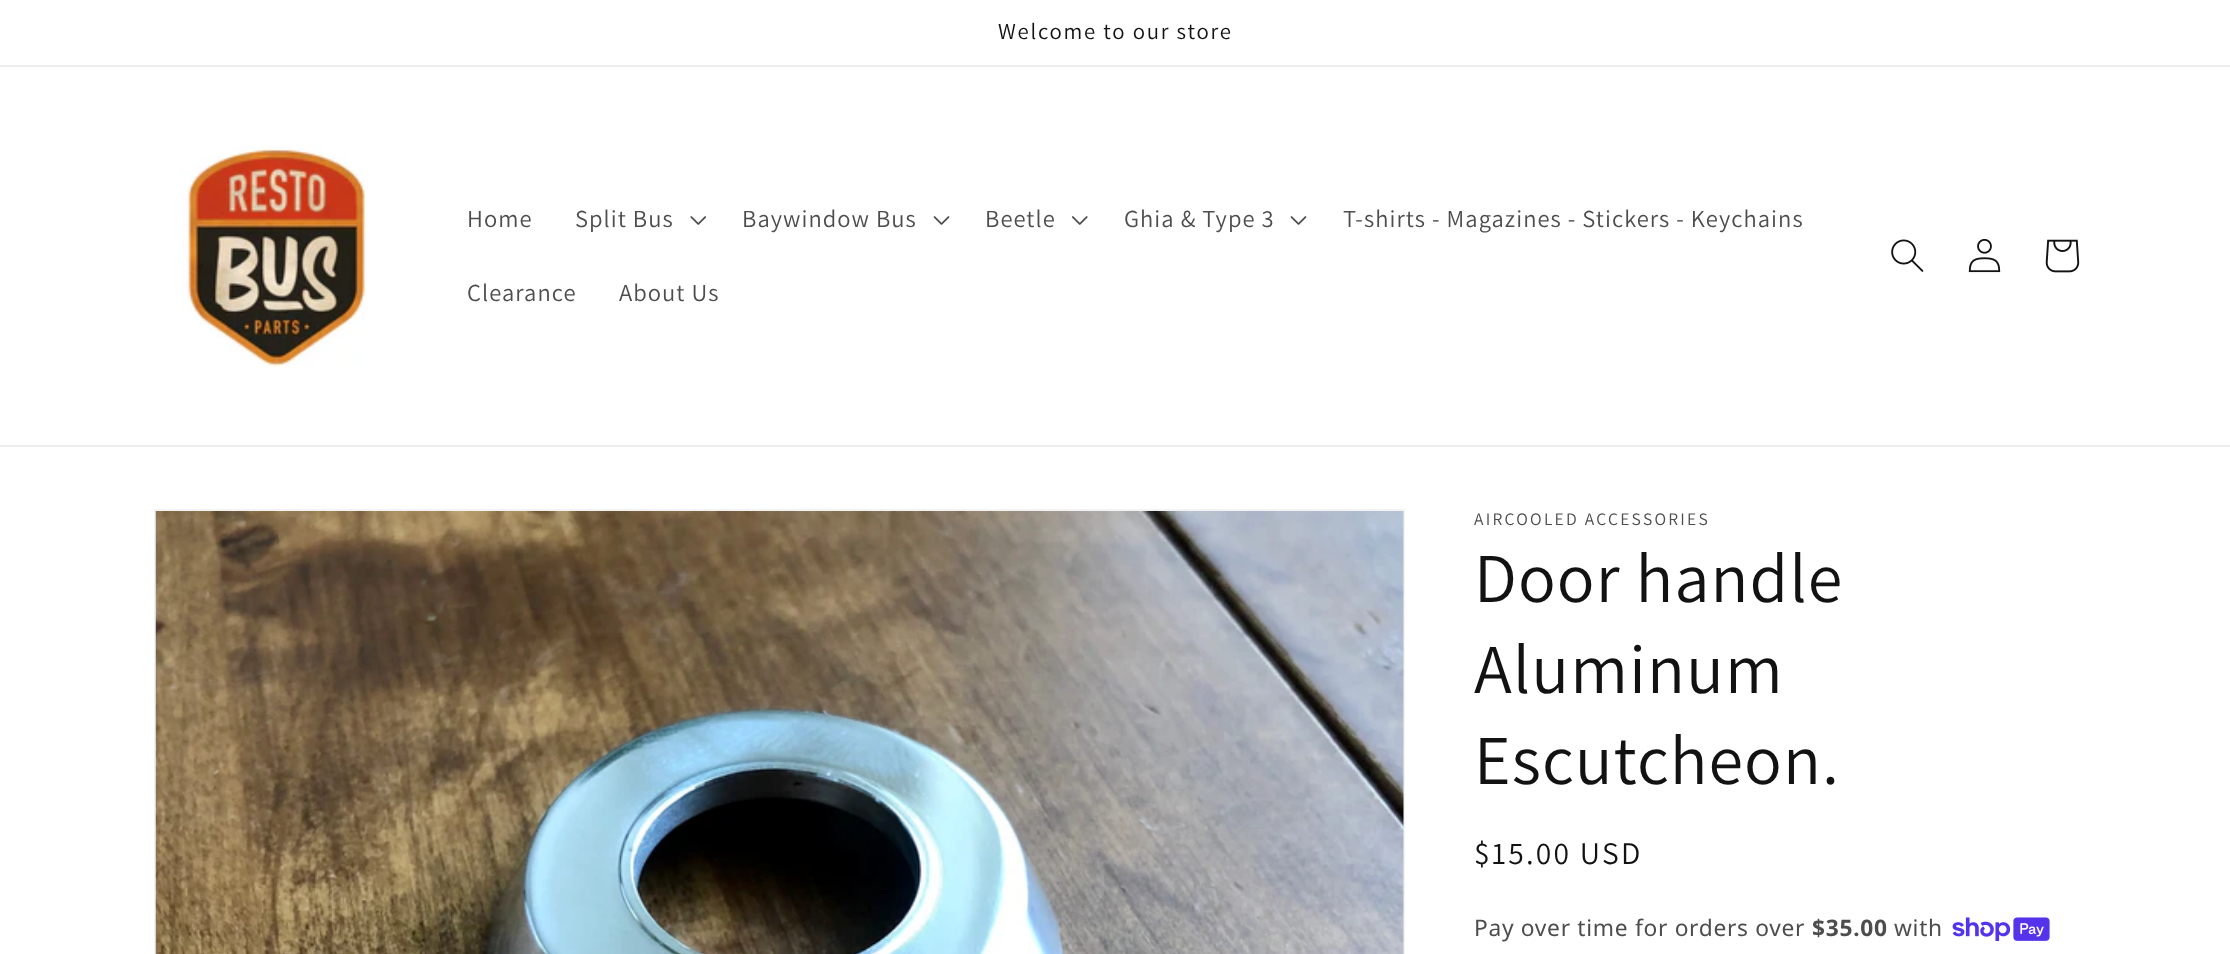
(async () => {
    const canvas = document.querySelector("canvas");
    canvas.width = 2230;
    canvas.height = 954;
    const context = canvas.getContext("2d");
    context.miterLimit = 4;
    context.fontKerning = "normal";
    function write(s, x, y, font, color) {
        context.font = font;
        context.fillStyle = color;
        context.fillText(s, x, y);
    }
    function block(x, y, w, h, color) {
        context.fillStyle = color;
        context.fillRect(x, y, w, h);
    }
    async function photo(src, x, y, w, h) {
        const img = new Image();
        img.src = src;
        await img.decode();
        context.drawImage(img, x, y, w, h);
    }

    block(0, 0, 2230, 954, "rgb(255, 255, 255)");
    block(0, 65, 2230, 2, "rgb(236, 236, 236)");
    context.letterSpacing = "1.75px";
    write("Welcome to our store", 998, 39, "22.75px Assistant", "rgb(18, 18, 18)");
    block(0, 445, 2230, 2, "rgb(236, 236, 236)");
    await photo("media/1.png", 182, 145, 184, 223);
    context.letterSpacing = "1.05px";
    write("Home", 467, 227, "24.5px Assistant", "rgb(77, 77, 77)");
    write("Split Bus", 575, 227, "24.5px Assistant", "rgb(77, 77, 77)");
    await photo("media/2.png", 690, 216, 16, 9);
    write("Baywindow Bus", 742, 227, "24.5px Assistant", "rgb(77, 77, 77)");
    await photo("media/3.png", 933, 216, 17, 9);
    write("Beetle", 985, 227, "24.5px Assistant", "rgb(77, 77, 77)");
    await photo("media/4.png", 1072, 216, 16, 9);
    write("Ghia & Type 3", 1124, 227, "24.5px Assistant", "rgb(77, 77, 77)");
    await photo("media/3.png", 1290, 216, 17, 9);
    write("T-shirts - Magazines - Stickers - Keychains", 1343, 227, "24.5px Assistant", "rgb(77, 77, 77)");
    write("Clearance", 467, 301, "24.5px Assistant", "rgb(77, 77, 77)");
    write("About Us", 619, 301, "24.5px Assistant", "rgb(77, 77, 77)");
    await photo("media/5.png", 1891, 239, 33, 33);
    await photo("media/6.png", 1968, 238, 33, 35);
    await photo("media/7.png", 2045, 239, 35, 34);
    context.strokeStyle = "rgb(243, 243, 243)";
    context.lineWidth = 2;
    context.strokeRect(155, 510, 1249, 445);
    await photo("media/8.png", 155, 511, 1249, 443);
    context.letterSpacing = "2.25px";
    write("AIRCOOLED ACCESSORIES", 1474, 525, "17.5px Assistant", "rgb(77, 77, 77)");
    context.letterSpacing = "1.05px";
    write("Door handle", 1474, 602, "70px Assistant", "rgb(18, 18, 18)");
    write("Aluminum", 1474, 693, "70px Assistant", "rgb(18, 18, 18)");
    write("Escutcheon.", 1474, 784, "70px Assistant", "rgb(18, 18, 18)");
    context.letterSpacing = "2.25px";
    write("$15.00 USD", 1474, 864, "31.5px Assistant", "rgb(18, 18, 18)");
    context.letterSpacing = "0.7px";
    write("Pay over time for orders over", 1474, 936, "22.75px Noto Sans", "rgb(77, 77, 77)");
    write("$35.00", 1812, 936, "bold 22.75px Noto Sans", "rgb(77, 77, 77)");
    write("with", 1894, 936, "22.75px Noto Sans", "rgb(77, 77, 77)");
    await photo("media/9.png", 1952, 917, 98, 24);
})();
